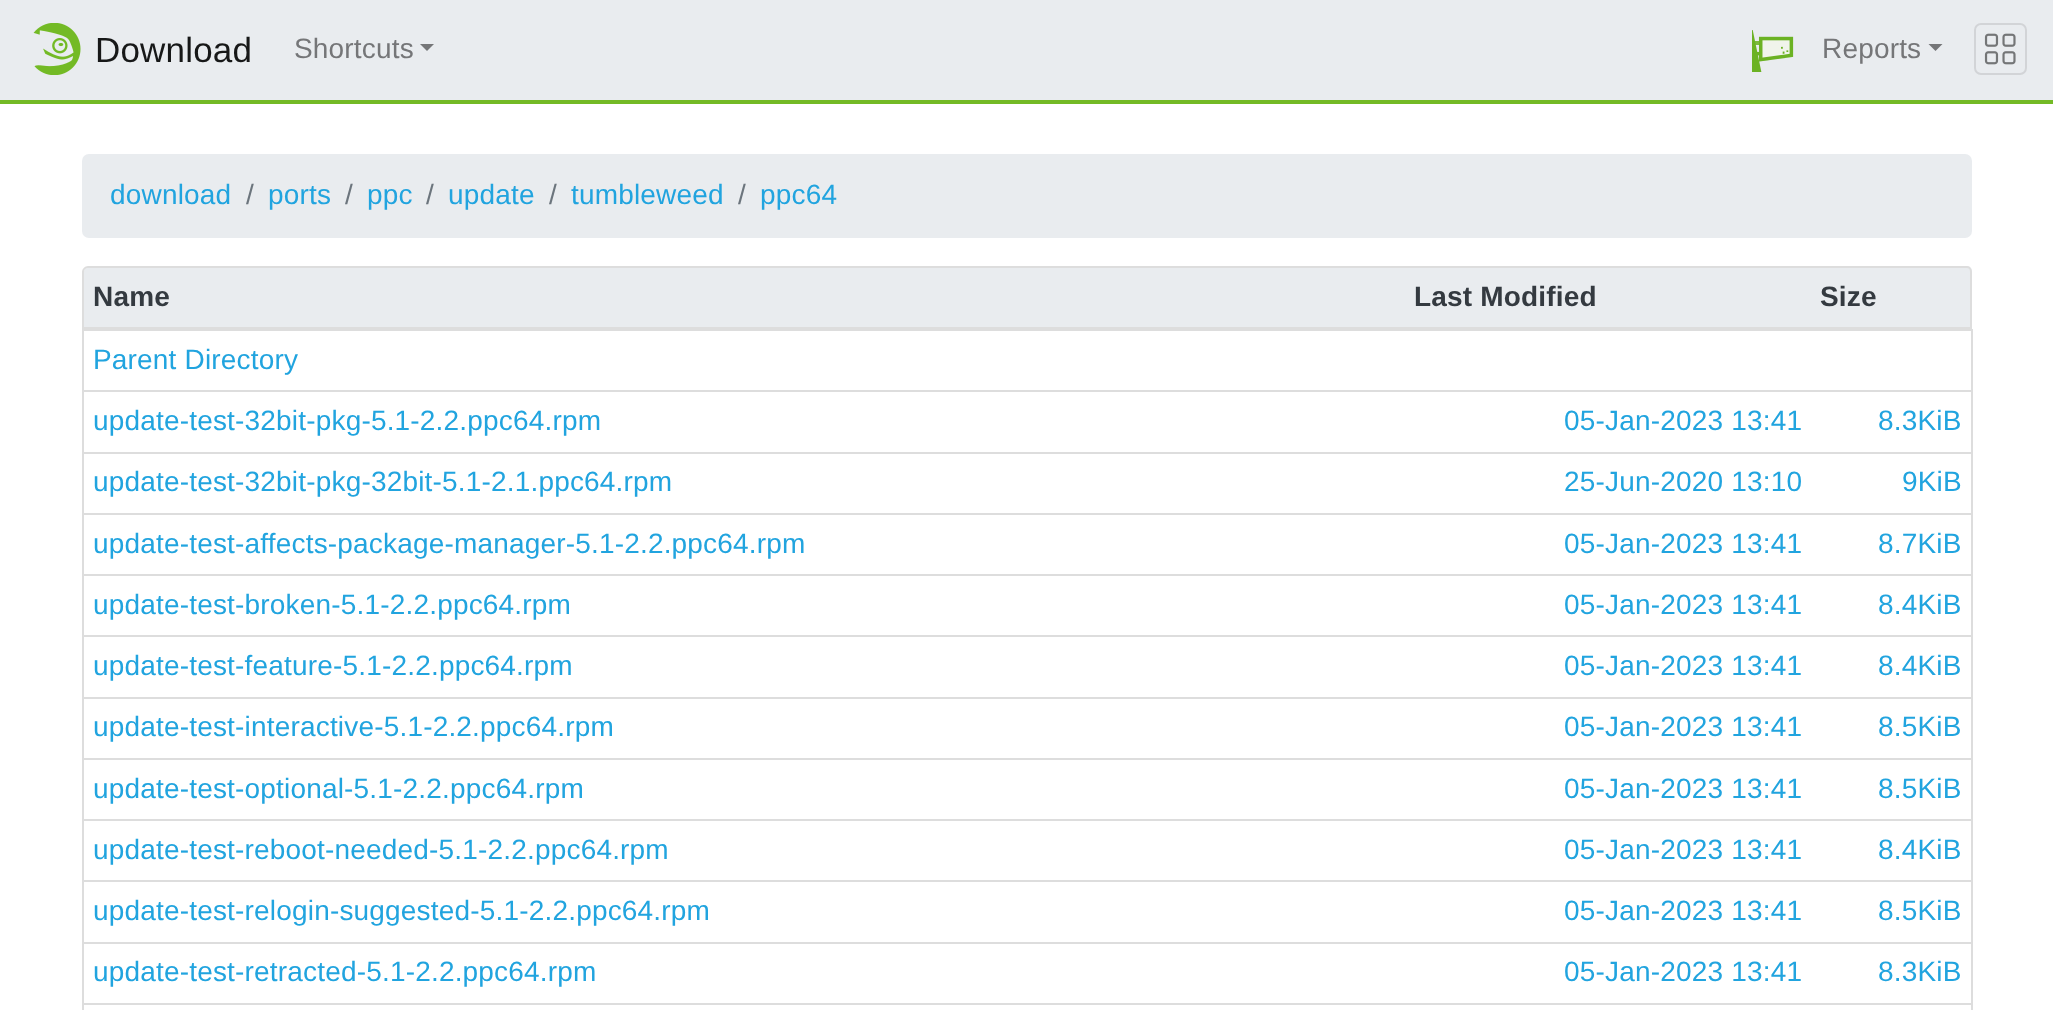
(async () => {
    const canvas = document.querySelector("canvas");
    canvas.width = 2053;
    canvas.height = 1010;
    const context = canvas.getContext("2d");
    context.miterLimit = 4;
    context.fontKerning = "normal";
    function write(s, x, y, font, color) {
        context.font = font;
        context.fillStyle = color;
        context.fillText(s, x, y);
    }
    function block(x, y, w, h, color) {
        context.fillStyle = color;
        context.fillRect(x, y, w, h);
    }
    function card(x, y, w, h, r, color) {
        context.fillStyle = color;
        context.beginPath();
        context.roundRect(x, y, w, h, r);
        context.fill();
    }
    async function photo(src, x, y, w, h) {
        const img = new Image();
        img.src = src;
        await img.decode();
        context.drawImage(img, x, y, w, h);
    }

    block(0, 0, 2053, 1010, "rgb(255, 255, 255)");
    block(0, 0, 2053, 100, "rgb(233, 236, 239)");
    block(0, 100, 2053, 4, "rgb(115, 186, 37)");
    await photo("media/1.png", 33, 23, 48, 52);
    context.letterSpacing = "0.18px";
    write("Download", 95, 62, "35px Liberation Sans", "rgb(23, 24, 24)");
    write("Shortcuts", 294, 58, "28px Liberation Sans", "rgb(117, 118, 120)");
    context.beginPath();
    context.moveTo(420, 44);
    context.lineTo(434, 44);
    context.lineTo(427, 51);
    context.closePath();
    context.fill();
    await photo("media/2.png", 1752, 30, 42, 42);
    write("Reports", 1822, 58, "28px Liberation Sans", "rgb(117, 118, 120)");
    context.beginPath();
    context.moveTo(1928.5, 44);
    context.lineTo(1942.5, 44);
    context.lineTo(1935.5, 51);
    context.closePath();
    context.fill();
    context.beginPath();
    context.roundRect(1975, 24, 51, 50, 6);
    context.strokeStyle = "rgb(210, 212, 215)";
    context.lineWidth = 2;
    context.stroke();
    await photo("media/3.png", 1984, 33, 32, 32);
    card(82, 154, 1890, 84, 7, "rgb(233, 236, 239)");
    write("download", 110, 204, "28px Liberation Sans", "rgb(33, 164, 223)");
    write("/", 246, 204, "28px Liberation Sans", "rgb(108, 117, 125)");
    write("ports", 268, 204, "28px Liberation Sans", "rgb(33, 164, 223)");
    write("/", 345, 204, "28px Liberation Sans", "rgb(108, 117, 125)");
    write("ppc", 367, 204, "28px Liberation Sans", "rgb(33, 164, 223)");
    write("/", 426, 204, "28px Liberation Sans", "rgb(108, 117, 125)");
    write("update", 448, 204, "28px Liberation Sans", "rgb(33, 164, 223)");
    write("/", 549, 204, "28px Liberation Sans", "rgb(108, 117, 125)");
    write("tumbleweed", 571, 204, "28px Liberation Sans", "rgb(33, 164, 223)");
    write("/", 738, 204, "28px Liberation Sans", "rgb(108, 117, 125)");
    write("ppc64", 760, 204, "28px Liberation Sans", "rgb(33, 164, 223)");
    context.fillStyle = "rgb(233, 236, 239)";
    context.beginPath();
    context.roundRect(84, 268, 1321, 59, [4, 0, 0, 0]);
    context.fill();
    context.fillStyle = "rgb(221, 221, 221)";
    context.beginPath();
    context.moveTo(88, 266);
    context.lineTo(1405, 266);
    context.lineTo(1405, 329);
    context.lineTo(82, 329);
    context.lineTo(82, 272);
    context.bezierCurveTo(82, 269, 85, 266, 88, 266);
    context.closePath();
    context.moveTo(88, 268);
    context.lineTo(1405, 268);
    context.lineTo(1405, 327);
    context.lineTo(84, 327);
    context.lineTo(84, 272);
    context.bezierCurveTo(84, 269, 86, 268, 88, 268);
    context.closePath();
    context.fill("evenodd");
    write("Name", 93, 306, "bold 28px Liberation Sans", "rgb(52, 58, 64)");
    block(1405, 268, 406, 59, "rgb(233, 236, 239)");
    block(1405, 266, 406, 2, "rgb(221, 221, 221)");
    block(1405, 327, 406, 2, "rgb(221, 221, 221)");
    write("Last Modified", 1414, 306, "bold 28px Liberation Sans", "rgb(52, 58, 64)");
    context.fillStyle = "rgb(233, 236, 239)";
    context.beginPath();
    context.roundRect(1811, 266, 161, 63, [0, 5, 0, 0]);
    context.fill();
    context.fillStyle = "rgb(221, 221, 221)";
    context.beginPath();
    context.moveTo(1811, 266);
    context.lineTo(1967, 266);
    context.bezierCurveTo(1970, 266, 1972, 269, 1972, 272);
    context.lineTo(1972, 329);
    context.lineTo(1811, 329);
    context.closePath();
    context.moveTo(1811, 268);
    context.lineTo(1967, 268);
    context.bezierCurveTo(1969, 268, 1970, 269, 1970, 272);
    context.lineTo(1970, 327);
    context.lineTo(1811, 327);
    context.closePath();
    context.fill("evenodd");
    write("Size", 1820, 306, "bold 28px Liberation Sans", "rgb(52, 58, 64)");
    block(82, 329, 1890, 2, "rgb(221, 221, 221)");
    block(1971, 329, 2, 61, "rgb(221, 221, 221)");
    block(82, 329, 2, 61, "rgb(221, 221, 221)");
    write("Parent Directory", 93, 369, "28px Liberation Sans", "rgb(33, 164, 223)");
    block(82, 390, 1890, 2, "rgb(221, 221, 221)");
    block(82, 390, 2, 62, "rgb(221, 221, 221)");
    write("update-test-32bit-pkg-5.1-2.2.ppc64.rpm", 93, 430, "28px Liberation Sans", "rgb(33, 164, 223)");
    write("05-Jan-2023 13:41", 1564, 430, "28px Liberation Sans", "rgb(33, 164, 223)");
    block(1971, 390, 2, 62, "rgb(221, 221, 221)");
    write("8.3KiB", 1878, 430, "28px Liberation Sans", "rgb(33, 164, 223)");
    block(82, 452, 1890, 2, "rgb(221, 221, 221)");
    block(82, 452, 2, 61, "rgb(221, 221, 221)");
    write("update-test-32bit-pkg-32bit-5.1-2.1.ppc64.rpm", 93, 491, "28px Liberation Sans", "rgb(33, 164, 223)");
    write("25-Jun-2020 13:10", 1564, 491, "28px Liberation Sans", "rgb(33, 164, 223)");
    block(1971, 452, 2, 61, "rgb(221, 221, 221)");
    write("9KiB", 1902, 491, "28px Liberation Sans", "rgb(33, 164, 223)");
    block(82, 513, 1890, 2, "rgb(221, 221, 221)");
    block(82, 513, 2, 61, "rgb(221, 221, 221)");
    write("update-test-affects-package-manager-5.1-2.2.ppc64.rpm", 93, 553, "28px Liberation Sans", "rgb(33, 164, 223)");
    write("05-Jan-2023 13:41", 1564, 553, "28px Liberation Sans", "rgb(33, 164, 223)");
    block(1971, 513, 2, 61, "rgb(221, 221, 221)");
    write("8.7KiB", 1878, 553, "28px Liberation Sans", "rgb(33, 164, 223)");
    block(82, 574, 1890, 2, "rgb(221, 221, 221)");
    block(82, 574, 2, 61, "rgb(221, 221, 221)");
    write("update-test-broken-5.1-2.2.ppc64.rpm", 93, 614, "28px Liberation Sans", "rgb(33, 164, 223)");
    write("05-Jan-2023 13:41", 1564, 614, "28px Liberation Sans", "rgb(33, 164, 223)");
    block(1971, 574, 2, 61, "rgb(221, 221, 221)");
    write("8.4KiB", 1878, 614, "28px Liberation Sans", "rgb(33, 164, 223)");
    block(82, 635, 1890, 2, "rgb(221, 221, 221)");
    block(82, 635, 2, 62, "rgb(221, 221, 221)");
    write("update-test-feature-5.1-2.2.ppc64.rpm", 93, 675, "28px Liberation Sans", "rgb(33, 164, 223)");
    write("05-Jan-2023 13:41", 1564, 675, "28px Liberation Sans", "rgb(33, 164, 223)");
    block(1971, 635, 2, 62, "rgb(221, 221, 221)");
    write("8.4KiB", 1878, 675, "28px Liberation Sans", "rgb(33, 164, 223)");
    block(82, 697, 1890, 2, "rgb(221, 221, 221)");
    block(82, 697, 2, 61, "rgb(221, 221, 221)");
    write("update-test-interactive-5.1-2.2.ppc64.rpm", 93, 736, "28px Liberation Sans", "rgb(33, 164, 223)");
    write("05-Jan-2023 13:41", 1564, 736, "28px Liberation Sans", "rgb(33, 164, 223)");
    block(1971, 697, 2, 61, "rgb(221, 221, 221)");
    write("8.5KiB", 1878, 736, "28px Liberation Sans", "rgb(33, 164, 223)");
    block(82, 758, 1890, 2, "rgb(221, 221, 221)");
    block(82, 758, 2, 61, "rgb(221, 221, 221)");
    write("update-test-optional-5.1-2.2.ppc64.rpm", 93, 798, "28px Liberation Sans", "rgb(33, 164, 223)");
    write("05-Jan-2023 13:41", 1564, 798, "28px Liberation Sans", "rgb(33, 164, 223)");
    block(1971, 758, 2, 61, "rgb(221, 221, 221)");
    write("8.5KiB", 1878, 798, "28px Liberation Sans", "rgb(33, 164, 223)");
    block(82, 819, 1890, 2, "rgb(221, 221, 221)");
    block(82, 819, 2, 61, "rgb(221, 221, 221)");
    write("update-test-reboot-needed-5.1-2.2.ppc64.rpm", 93, 859, "28px Liberation Sans", "rgb(33, 164, 223)");
    write("05-Jan-2023 13:41", 1564, 859, "28px Liberation Sans", "rgb(33, 164, 223)");
    block(1971, 819, 2, 61, "rgb(221, 221, 221)");
    write("8.4KiB", 1878, 859, "28px Liberation Sans", "rgb(33, 164, 223)");
    block(82, 880, 1890, 2, "rgb(221, 221, 221)");
    block(82, 880, 2, 62, "rgb(221, 221, 221)");
    write("update-test-relogin-suggested-5.1-2.2.ppc64.rpm", 93, 920, "28px Liberation Sans", "rgb(33, 164, 223)");
    write("05-Jan-2023 13:41", 1564, 920, "28px Liberation Sans", "rgb(33, 164, 223)");
    block(1971, 880, 2, 62, "rgb(221, 221, 221)");
    write("8.5KiB", 1878, 920, "28px Liberation Sans", "rgb(33, 164, 223)");
    block(82, 942, 1890, 2, "rgb(221, 221, 221)");
    block(82, 942, 2, 61, "rgb(221, 221, 221)");
    write("update-test-retracted-5.1-2.2.ppc64.rpm", 93, 981, "28px Liberation Sans", "rgb(33, 164, 223)");
    write("05-Jan-2023 13:41", 1564, 981, "28px Liberation Sans", "rgb(33, 164, 223)");
    block(1971, 942, 2, 61, "rgb(221, 221, 221)");
    write("8.3KiB", 1878, 981, "28px Liberation Sans", "rgb(33, 164, 223)");
    block(82, 1003, 1890, 2, "rgb(221, 221, 221)");
    block(82, 1003, 2, 7, "rgb(221, 221, 221)");
    block(1971, 1003, 2, 7, "rgb(221, 221, 221)");
})();
